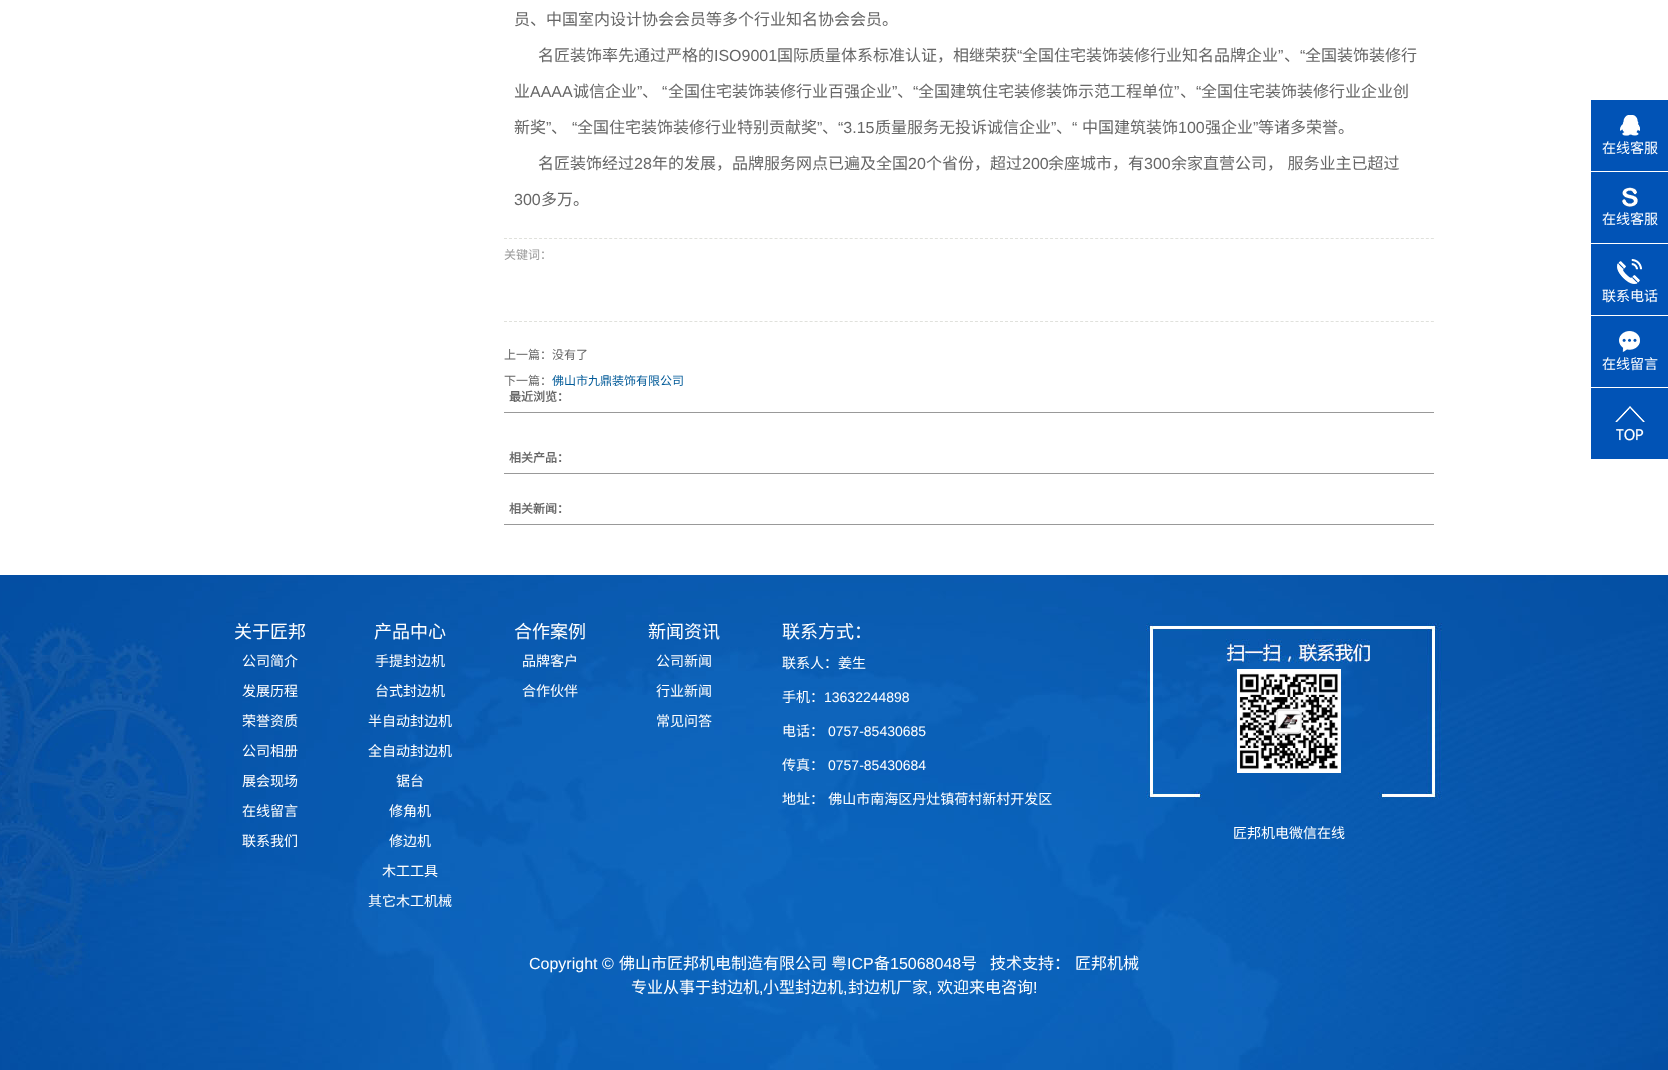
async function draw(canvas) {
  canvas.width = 1668;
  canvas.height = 1070;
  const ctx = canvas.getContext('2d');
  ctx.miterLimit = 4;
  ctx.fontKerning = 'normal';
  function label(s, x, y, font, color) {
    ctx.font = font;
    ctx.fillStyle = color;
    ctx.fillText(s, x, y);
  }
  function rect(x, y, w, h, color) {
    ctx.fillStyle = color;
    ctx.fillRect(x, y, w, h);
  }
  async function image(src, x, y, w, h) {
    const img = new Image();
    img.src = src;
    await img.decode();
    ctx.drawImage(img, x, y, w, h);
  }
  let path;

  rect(0, 0, 1668, 1070, '#fff');
  label('员、中国室内设计协会会员等多个行业知名协会会员。', 514, 25, '16px Noto Sans CJK SC', '#666');
  label('名匠装饰率先通过严格的', 538, 61, '16px Noto Sans CJK SC', '#666');
  label('ISO9001', 714, 61, '16px Liberation Sans', '#666');
  label('国际质量体系标准认证，相继荣获', 777, 61, '16px Noto Sans CJK SC', '#666');
  label('“', 1017, 61, '16px Liberation Sans', '#666');
  label('全国住宅装饰装修行业知名品牌企业', 1022, 61, '16px Noto Sans CJK SC', '#666');
  label('”', 1278, 61, '16px Liberation Sans', '#666');
  label('“', 1300, 61, '16px Liberation Sans', '#666');
  label('全国装饰装修行', 1305, 61, '16px Noto Sans CJK SC', '#666');
  label('、', 1284, 61, '16px Noto Sans CJK SC', '#666');
  label('业', 514, 97, '16px Noto Sans CJK SC', '#666');
  label('AAAA', 530, 97, '16px Liberation Sans', '#666');
  label('诚信企业', 573, 97, '16px Noto Sans CJK SC', '#666');
  label('”', 637, 97, '16px Liberation Sans', '#666');
  label('“', 662, 97, '16px Liberation Sans', '#666');
  label('全国住宅装饰装修行业百强企业', 668, 97, '16px Noto Sans CJK SC', '#666');
  label('”', 892, 97, '16px Liberation Sans', '#666');
  label('“', 913, 97, '16px Liberation Sans', '#666');
  label('全国建筑住宅装修装饰示范工程单位', 918, 97, '16px Noto Sans CJK SC', '#666');
  label('”', 1174, 97, '16px Liberation Sans', '#666');
  label('“', 1196, 97, '16px Liberation Sans', '#666');
  label('全国住宅装饰装修行业企业创', 1201, 97, '16px Noto Sans CJK SC', '#666');
  label('、', 642, 97, '16px Noto Sans CJK SC', '#666');
  label('、', 897, 97, '16px Noto Sans CJK SC', '#666');
  label('、', 1180, 97, '16px Noto Sans CJK SC', '#666');
  label('新奖', 514, 133, '16px Noto Sans CJK SC', '#666');
  label('”', 546, 133, '16px Liberation Sans', '#666');
  label('“', 572, 133, '16px Liberation Sans', '#666');
  label('全国住宅装饰装修行业特别贡献奖', 577, 133, '16px Noto Sans CJK SC', '#666');
  label('”', 817, 133, '16px Liberation Sans', '#666');
  label('“3.15', 838, 133, '16px Liberation Sans', '#666');
  label('质量服务无投诉诚信企业', 875, 133, '16px Noto Sans CJK SC', '#666');
  label('”', 1051, 133, '16px Liberation Sans', '#666');
  label('“', 1072, 133, '16px Liberation Sans', '#666');
  label('中国建筑装饰', 1082, 133, '16px Noto Sans CJK SC', '#666');
  label('100', 1178, 133, '16px Liberation Sans', '#666');
  label('强企业', 1205, 133, '16px Noto Sans CJK SC', '#666');
  label('”', 1253, 133, '16px Liberation Sans', '#666');
  label('等诸多荣誉。', 1258, 133, '16px Noto Sans CJK SC', '#666');
  label('、', 551, 133, '16px Noto Sans CJK SC', '#666');
  label('、', 822, 133, '16px Noto Sans CJK SC', '#666');
  label('、', 1056, 133, '16px Noto Sans CJK SC', '#666');
  label('名匠装饰经过', 538, 169, '16px Noto Sans CJK SC', '#666');
  label('28', 634, 169, '16px Liberation Sans', '#666');
  label('年的发展，品牌服务网点已遍及全国', 652, 169, '16px Noto Sans CJK SC', '#666');
  label('20', 908, 169, '16px Liberation Sans', '#666');
  label('个省份，超过', 926, 169, '16px Noto Sans CJK SC', '#666');
  label('200', 1022, 169, '16px Liberation Sans', '#666');
  label('余座城市，有', 1048, 169, '16px Noto Sans CJK SC', '#666');
  label('300', 1144, 169, '16px Liberation Sans', '#666');
  ctx.wordSpacing = '1px';
  label('余家直营公司， 服务业主已超过', 1171, 169, '16px Noto Sans CJK SC', '#666');
  ctx.wordSpacing = '0px';
  label('300', 514, 205, '16px Liberation Sans', '#666');
  label('多万。', 541, 205, '16px Noto Sans CJK SC', '#666');
  path = new Path2D('M504 238.5H1434');
  ctx.strokeStyle = '#e0e1dc';
  ctx.setLineDash([3, 2.01]);
  ctx.stroke(path);
  label('关键词：', 504, 259, '12px Noto Sans CJK SC', '#999');
  path = new Path2D('M504 321.5H1434');
  ctx.stroke(path);
  label('上一篇：没有了', 504, 359, '12px Noto Sans CJK SC', '#666');
  label('下一篇：', 504, 385, '12px Noto Sans CJK SC', '#666');
  label('佛山市九鼎装饰有限公司', 552, 385, '12px Noto Sans CJK SC', '#005a98');
  rect(504, 412, 930, 1, '#999');
  label('最近浏览：', 509, 401, 'bold 12px Noto Sans CJK SC', '#666');
  rect(504, 473, 930, 1, '#999');
  label('相关产品：', 509, 462, 'bold 12px Noto Sans CJK SC', '#666');
  rect(504, 524, 930, 1, '#999');
  label('相关新闻：', 509, 513, 'bold 12px Noto Sans CJK SC', '#666');
  rect(1591, 100, 77, 71, '#0153b6');
  await image('assets/img1.png', 1620, 115, 20, 21);
  label('在线客服', 1602, 153, '14px Noto Sans CJK SC', '#fff');
  rect(1591, 172, 77, 71, '#0153b6');
  await image('assets/img2.png', 1622, 187, 16, 20);
  label('在线客服', 1602, 224, '14px Noto Sans CJK SC', '#fff');
  rect(1591, 244, 77, 71, '#0153b6');
  await image('assets/img3.png', 1617, 259, 25, 25);
  label('联系电话', 1602, 301, '14px Noto Sans CJK SC', '#fff');
  rect(1591, 316, 77, 71, '#0153b6');
  await image('assets/img4.png', 1619, 331, 21, 21);
  label('在线留言', 1602, 369, '14px Noto Sans CJK SC', '#fff');
  rect(1591, 388, 77, 71, '#0153b6');
  await image('assets/img5.png', 1615, 406, 30, 35);
  await image('assets/img6.png', 0, 575, 1668, 495);
  label('关于匠邦', 234, 638, '18px Noto Sans CJK SC', '#fff');
  label('公司简介', 242, 666, '14px Noto Sans CJK SC', '#fff');
  label('发展历程', 242, 696, '14px Noto Sans CJK SC', '#fff');
  label('荣誉资质', 242, 726, '14px Noto Sans CJK SC', '#fff');
  label('公司相册', 242, 756, '14px Noto Sans CJK SC', '#fff');
  label('展会现场', 242, 786, '14px Noto Sans CJK SC', '#fff');
  label('在线留言', 242, 816, '14px Noto Sans CJK SC', '#fff');
  label('联系我们', 242, 846, '14px Noto Sans CJK SC', '#fff');
  label('产品中心', 374, 638, '18px Noto Sans CJK SC', '#fff');
  label('手提封边机', 375, 666, '14px Noto Sans CJK SC', '#fff');
  label('台式封边机', 375, 696, '14px Noto Sans CJK SC', '#fff');
  label('半自动封边机', 368, 726, '14px Noto Sans CJK SC', '#fff');
  label('全自动封边机', 368, 756, '14px Noto Sans CJK SC', '#fff');
  label('锯台', 396, 786, '14px Noto Sans CJK SC', '#fff');
  label('修角机', 389, 816, '14px Noto Sans CJK SC', '#fff');
  label('修边机', 389, 846, '14px Noto Sans CJK SC', '#fff');
  label('木工工具', 382, 876, '14px Noto Sans CJK SC', '#fff');
  label('其它木工机械', 368, 906, '14px Noto Sans CJK SC', '#fff');
  label('合作案例', 514, 638, '18px Noto Sans CJK SC', '#fff');
  label('品牌客户', 522, 666, '14px Noto Sans CJK SC', '#fff');
  label('合作伙伴', 522, 696, '14px Noto Sans CJK SC', '#fff');
  label('新闻资讯', 648, 638, '18px Noto Sans CJK SC', '#fff');
  label('公司新闻', 656, 666, '14px Noto Sans CJK SC', '#fff');
  label('行业新闻', 656, 696, '14px Noto Sans CJK SC', '#fff');
  label('常见问答', 656, 726, '14px Noto Sans CJK SC', '#fff');
  label('联系方式：', 782, 638, '18px Noto Sans CJK SC', '#fff');
  label('联系人：姜生', 782, 668, '14px Noto Sans CJK SC', '#fff');
  label('手机：', 782, 702, '14px Noto Sans CJK SC', '#fff');
  label('13632244898', 824, 702, '14px Liberation Sans', '#fff');
  label('电话：', 782, 736, '14px Noto Sans CJK SC', '#fff');
  label('0757-85430685', 828, 736, '14px Liberation Sans', '#fff');
  label('传真：', 782, 770, '14px Noto Sans CJK SC', '#fff');
  label('0757-85430684', 828, 770, '14px Liberation Sans', '#fff');
  ctx.wordSpacing = '1px';
  label('地址： 佛山市南海区丹灶镇荷村新村开发区', 782, 804, '14px Noto Sans CJK SC', '#fff');
  await image('assets/img7.png', 1237, 669, 104, 104);
  ctx.wordSpacing = '0px';
  label('匠邦机电微信在线', 1233, 838, '14px Noto Sans CJK SC', '#fff');
  label('Copyright ©', 529, 969, '16px Liberation Sans', '#fff');
  label('佛山市匠邦机电制造有限公司', 619, 969, '16px Noto Sans CJK SC', '#fff');
  label('粤', 831, 969, '16px Noto Sans CJK SC', '#fff');
  label('ICP', 847, 969, '16px Liberation Sans', '#fff');
  label('备', 874, 969, '16px Noto Sans CJK SC', '#fff');
  label('15068048', 890, 969, '16px Liberation Sans', '#fff');
  label('号', 961, 969, '16px Noto Sans CJK SC', '#fff');
  label('技术支持：', 990, 969, '16px Noto Sans CJK SC', '#fff');
  label('匠邦机械', 1075, 969, '16px Noto Sans CJK SC', '#fff');
  label('专业从事于封边机', 631, 993, '16px Noto Sans CJK SC', '#fff');
  label('小型封边机', 763, 993, '16px Noto Sans CJK SC', '#fff');
  label('封边机厂家', 848, 993, '16px Noto Sans CJK SC', '#fff');
  label('欢迎来电咨询', 937, 993, '16px Noto Sans CJK SC', '#fff');
  label('!', 1033, 993, '16px Liberation Sans', '#fff');
  label(',', 759, 993, '16px Liberation Sans', '#fff');
  label(',', 843, 993, '16px Liberation Sans', '#fff');
  label(',', 928, 993, '16px Liberation Sans', '#fff');
}

draw(document.querySelector('canvas'));
